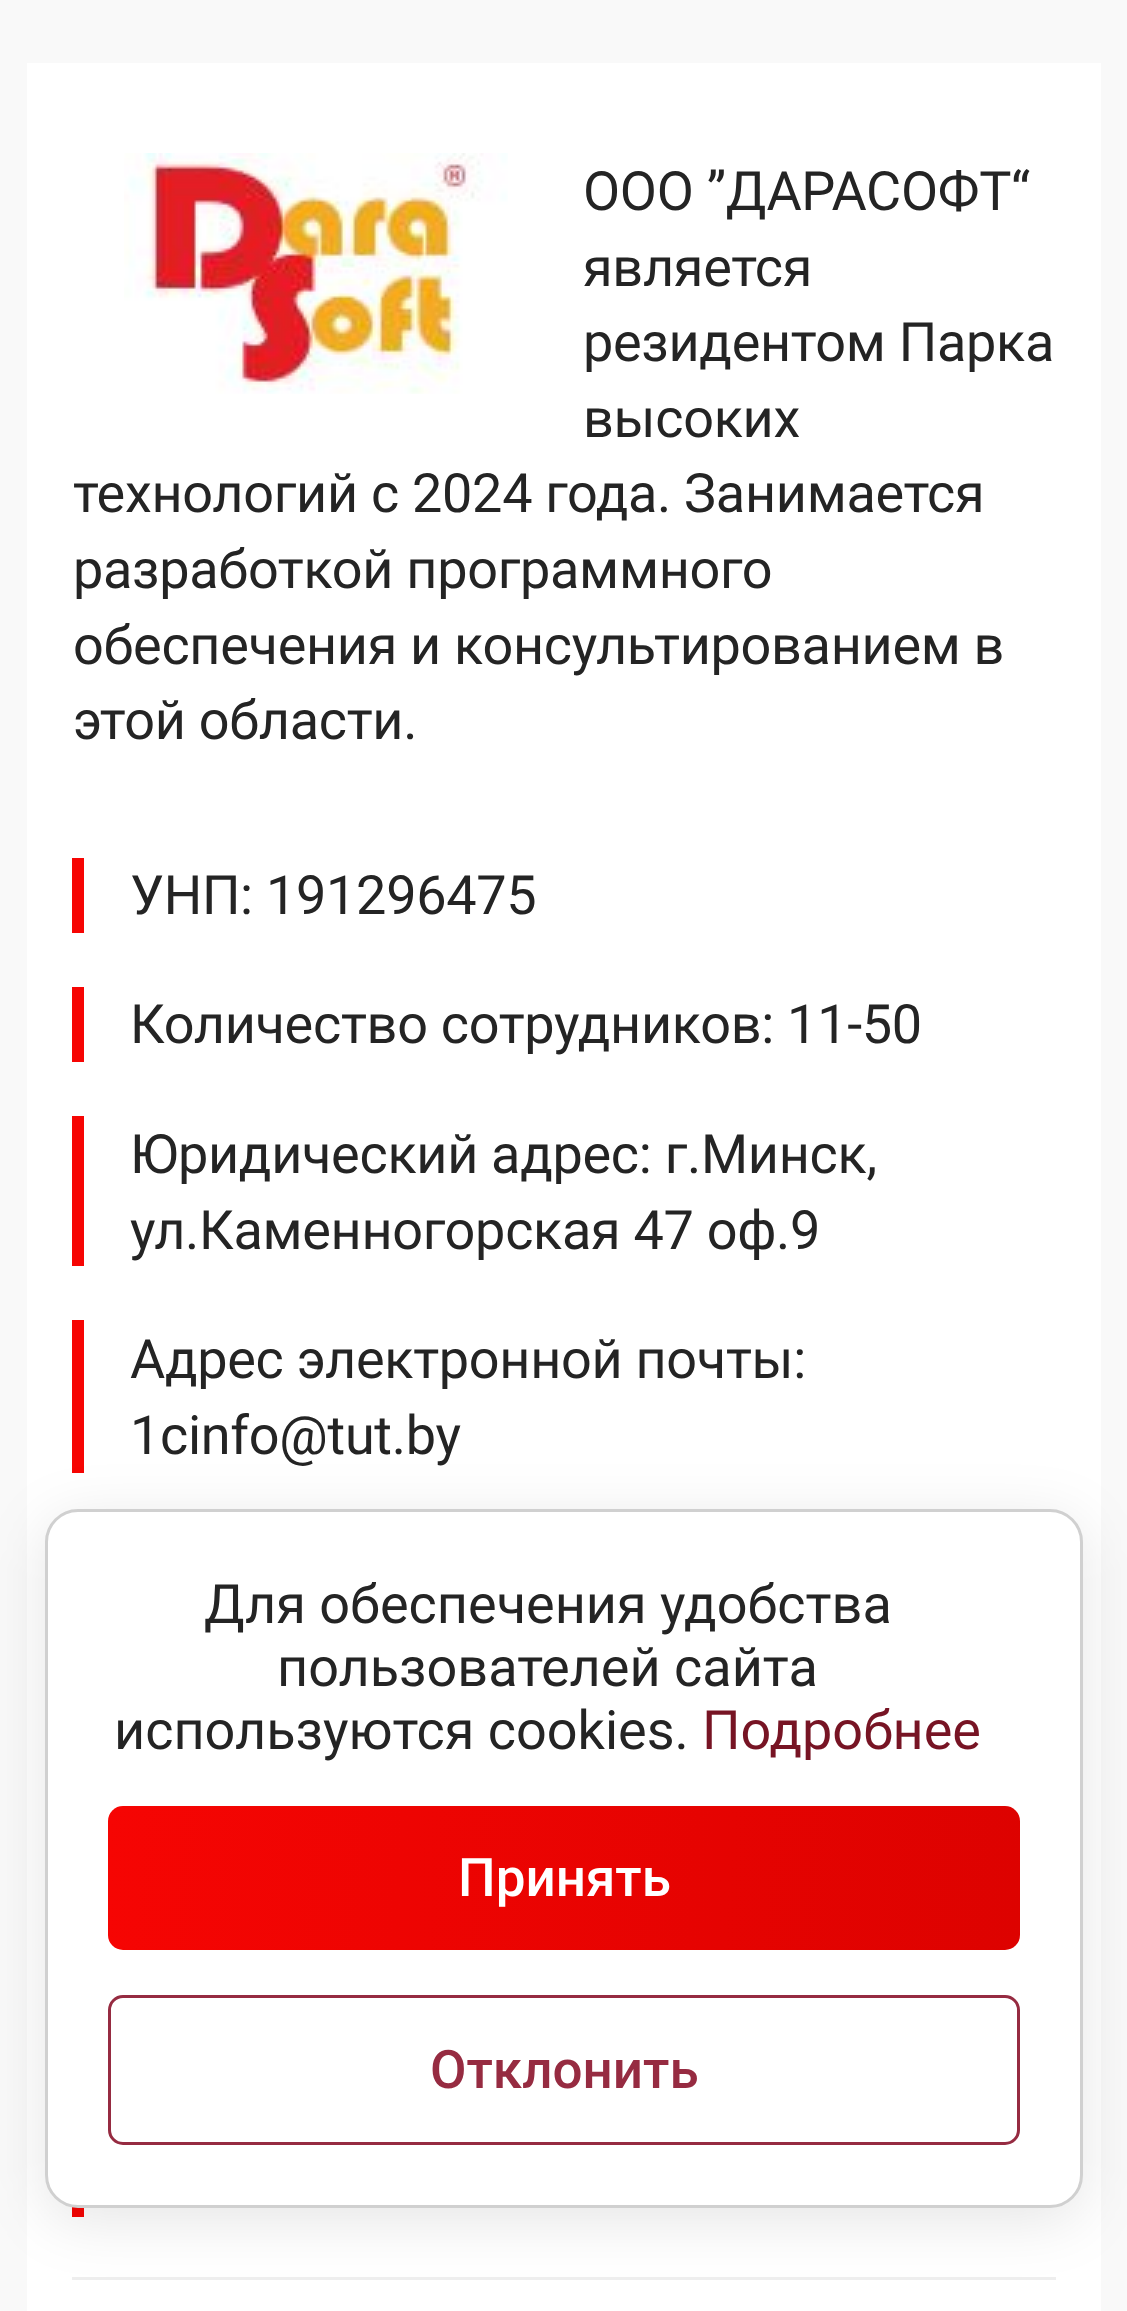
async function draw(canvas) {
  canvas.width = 1127;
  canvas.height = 2311;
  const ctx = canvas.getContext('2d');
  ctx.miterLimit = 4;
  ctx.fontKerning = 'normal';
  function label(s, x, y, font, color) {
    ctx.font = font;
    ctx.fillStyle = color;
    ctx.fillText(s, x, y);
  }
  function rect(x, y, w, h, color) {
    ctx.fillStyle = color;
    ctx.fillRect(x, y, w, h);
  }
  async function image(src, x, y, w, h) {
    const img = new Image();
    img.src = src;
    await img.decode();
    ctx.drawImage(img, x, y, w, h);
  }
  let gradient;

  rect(0, 0, 1127, 2311, '#f9f9f9');
  rect(27, 63, 1074, 2248, '#fff');
  await image('assets/img1.png', 124, 153, 384, 241);
  ctx.letterSpacing = '-0.3px';
  label('ООО ”ДАРАСОФТ“', 583, 210, '54px Roboto', '#242424');
  label('является', 583, 286, '54px Roboto', '#242424');
  label('резидентом Парка', 583, 361, '54px Roboto', '#242424');
  label('высоких', 583, 437, '54px Roboto', '#242424');
  label('технологий с 2024 года. Занимается', 73, 512, '54px Roboto', '#242424');
  label('разработкой программного', 73, 588, '54px Roboto', '#242424');
  label('обеспечения и консультированием в', 73, 664, '54px Roboto', '#242424');
  label('этой области.', 73, 739, '54px Roboto', '#242424');
  rect(72, 858, 12, 75, '#f60503');
  label('УНП: 191296475', 130, 914, '54px Roboto', '#242424');
  rect(72, 987, 12, 75, '#f60503');
  label('Количество сотрудников: 11-50', 130, 1043, '54px Roboto', '#242424');
  rect(72, 1116, 12, 150, '#f60503');
  label('Юридический адрес: г.Минск,', 130, 1173, '54px Roboto', '#242424');
  label('ул.Каменногорская 47 оф.9', 130, 1249, '54px Roboto', '#242424');
  rect(72, 1320, 12, 153, '#f60503');
  label('Адрес электронной почты:', 130, 1378, '54px Roboto', '#242424');
  label('1cinfo@tut.by', 130, 1454, '54px Roboto', '#242424');
  rect(72, 2207, 12, 10, '#f60503');
  rect(72, 2277, 984, 3, '#eee');
  ctx.fillStyle = '#0000001a';
  ctx.filter = 'blur(30px)';
  ctx.beginPath();
  ctx.roundRect(45, 1521, 1038, 699, 33);
  ctx.fill();
  ctx.filter = 'none';
  ctx.fillStyle = '#fff';
  ctx.beginPath();
  ctx.roundRect(46.5, 1510.5, 1035, 696, 31.5);
  ctx.fill();
  ctx.strokeStyle = '#d0d0d0';
  ctx.lineWidth = 3;
  ctx.stroke();
  ctx.letterSpacing = '0px';
  label('Для обеспечения удобства', 204, 1623, '54px Roboto', '#242424');
  label('пользователей сайта', 277, 1686, '54px Roboto', '#242424');
  label('используются cookies.', 114, 1749, '54px Roboto', '#242424');
  label('Подробнее', 702, 1749, '54px Roboto', '#771424');
  gradient = ctx.createLinearGradient(105, 1844, 1023, 1912);
  gradient.addColorStop(0, '#f60503');
  gradient.addColorStop(1, '#dd0200');
  ctx.fillStyle = gradient;
  ctx.beginPath();
  ctx.roundRect(108, 1806, 912, 144, 15);
  ctx.fill();
  label('Принять', 458, 1896, '500 53px Roboto', '#fff');
  ctx.beginPath();
  ctx.roundRect(109.5, 1996.5, 909, 147, 13.5);
  ctx.strokeStyle = '#962b41';
  ctx.stroke();
  label('Отклонить', 430, 2088, '500 53px Roboto', '#962b41');
}

draw(document.querySelector('canvas'));
